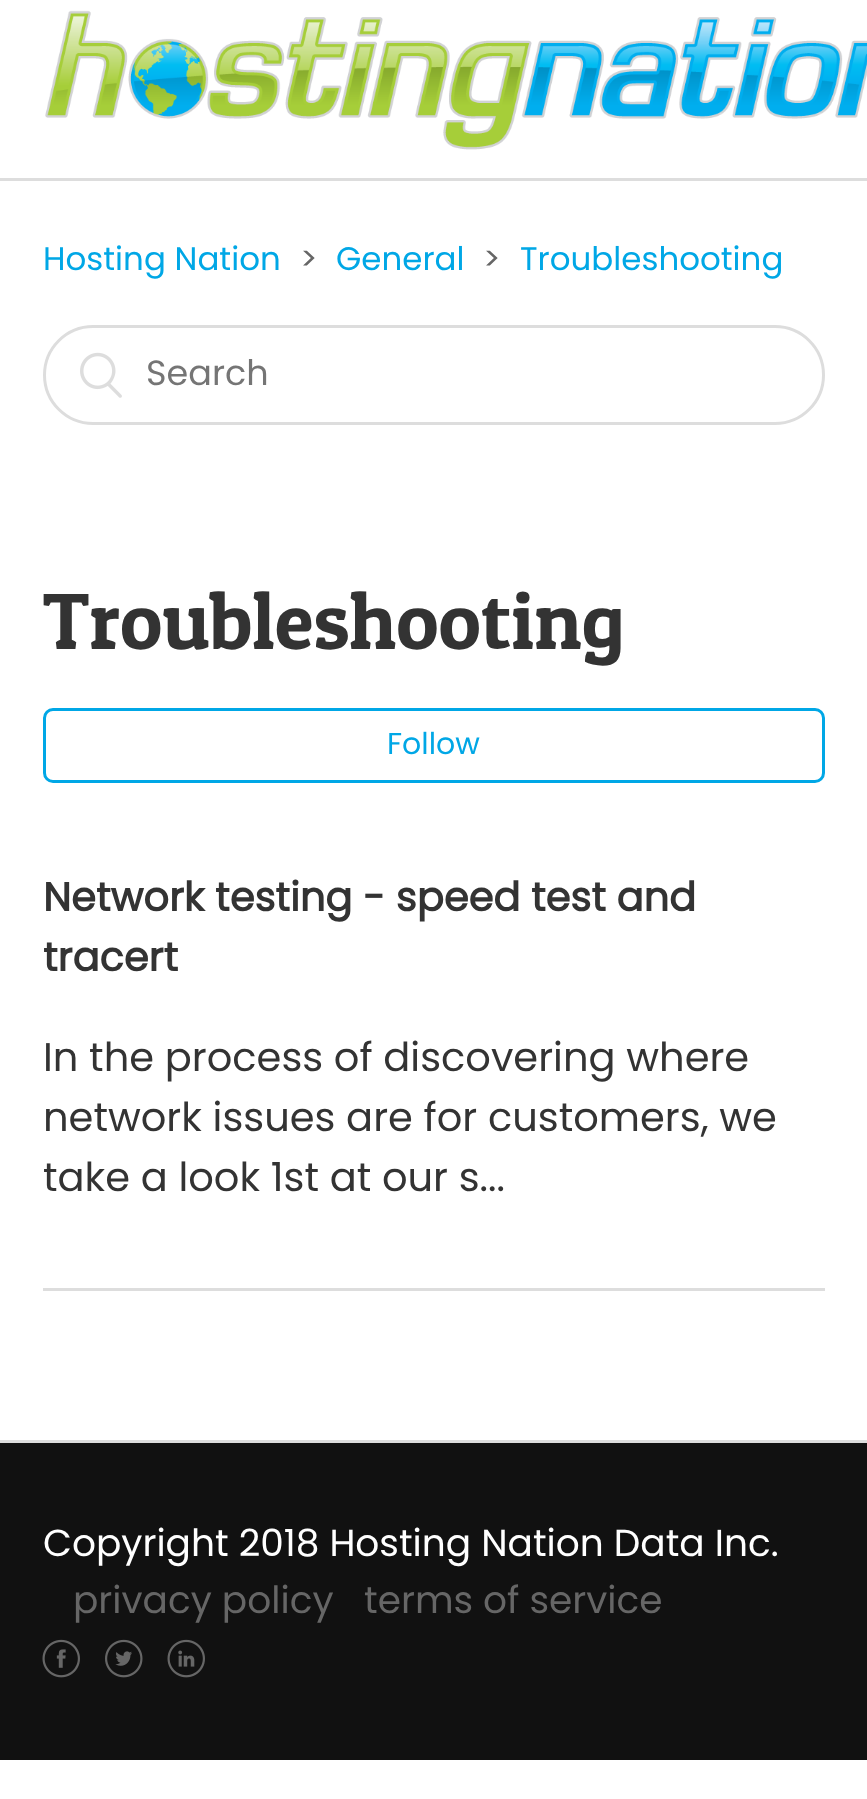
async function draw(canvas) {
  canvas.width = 867;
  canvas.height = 1799;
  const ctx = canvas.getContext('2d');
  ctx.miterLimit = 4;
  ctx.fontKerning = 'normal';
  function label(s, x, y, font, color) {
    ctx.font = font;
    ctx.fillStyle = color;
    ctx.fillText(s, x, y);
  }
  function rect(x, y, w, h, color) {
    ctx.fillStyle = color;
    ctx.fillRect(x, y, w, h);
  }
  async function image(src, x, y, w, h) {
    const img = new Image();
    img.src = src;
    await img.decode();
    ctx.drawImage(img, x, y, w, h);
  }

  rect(0, 0, 867, 1799, '#fff');
  await image('assets/img1.png', 45, 10, 822, 140);
  rect(0, 178, 867, 3, '#ddd');
  label('Hosting Nation', 43, 270, '32.5px Poppins', '#00a7e6');
  label('>', 300, 270, '32.5px Poppins', '#666');
  label('General', 336, 270, '32.5px Poppins', '#00a7e6');
  label('>', 483, 270, '32.5px Poppins', '#666');
  label('Troubleshooting', 520, 270, '32.5px Poppins', '#00a7e6');
  ctx.beginPath();
  ctx.roundRect(44.5, 326.5, 779, 97, 48.5);
  ctx.strokeStyle = '#ddd';
  ctx.lineWidth = 3;
  ctx.stroke();
  await image('assets/img2.png', 80, 352, 42, 46);
  label('Search', 146, 385, '35px Poppins', '#757575');
  label('Troubleshooting', 43, 649, '80px Patua One', '#333');
  ctx.beginPath();
  ctx.roundRect(44.5, 709.5, 779, 72, 8.5);
  ctx.strokeStyle = '#00a7e6';
  ctx.stroke();
  label('Follow', 387, 754, '30px Poppins', '#00a7e6');
  rect(43, 1288, 782, 3, '#ddd');
  label('Network testing - speed test and', 43, 911, 'bold 40px Poppins', '#333');
  label('tracert', 43, 971, 'bold 40px Poppins', '#333');
  label('In the process of discovering where', 43, 1071, '40px Poppins', '#333');
  label('network issues are for customers, we', 43, 1131, '40px Poppins', '#333');
  label('take a look 1st at our s...', 43, 1191, '40px Poppins', '#333');
  rect(0, 1443, 867, 317, '#111');
  rect(0, 1440, 867, 3, '#ddd');
  label('Copyright 2018 Hosting Nation Data Inc.', 43, 1556, '37.5px Poppins', '#fff');
  label('privacy policy', 73, 1613, '37.5px Poppins', '#666');
  label('terms of service', 364, 1613, '37.5px Poppins', '#666');
  await image('assets/img3.png', 42, 1639, 38, 39);
  await image('assets/img4.png', 105, 1639, 38, 39);
  await image('assets/img5.png', 167, 1639, 38, 39);
}

draw(document.querySelector('canvas'));
